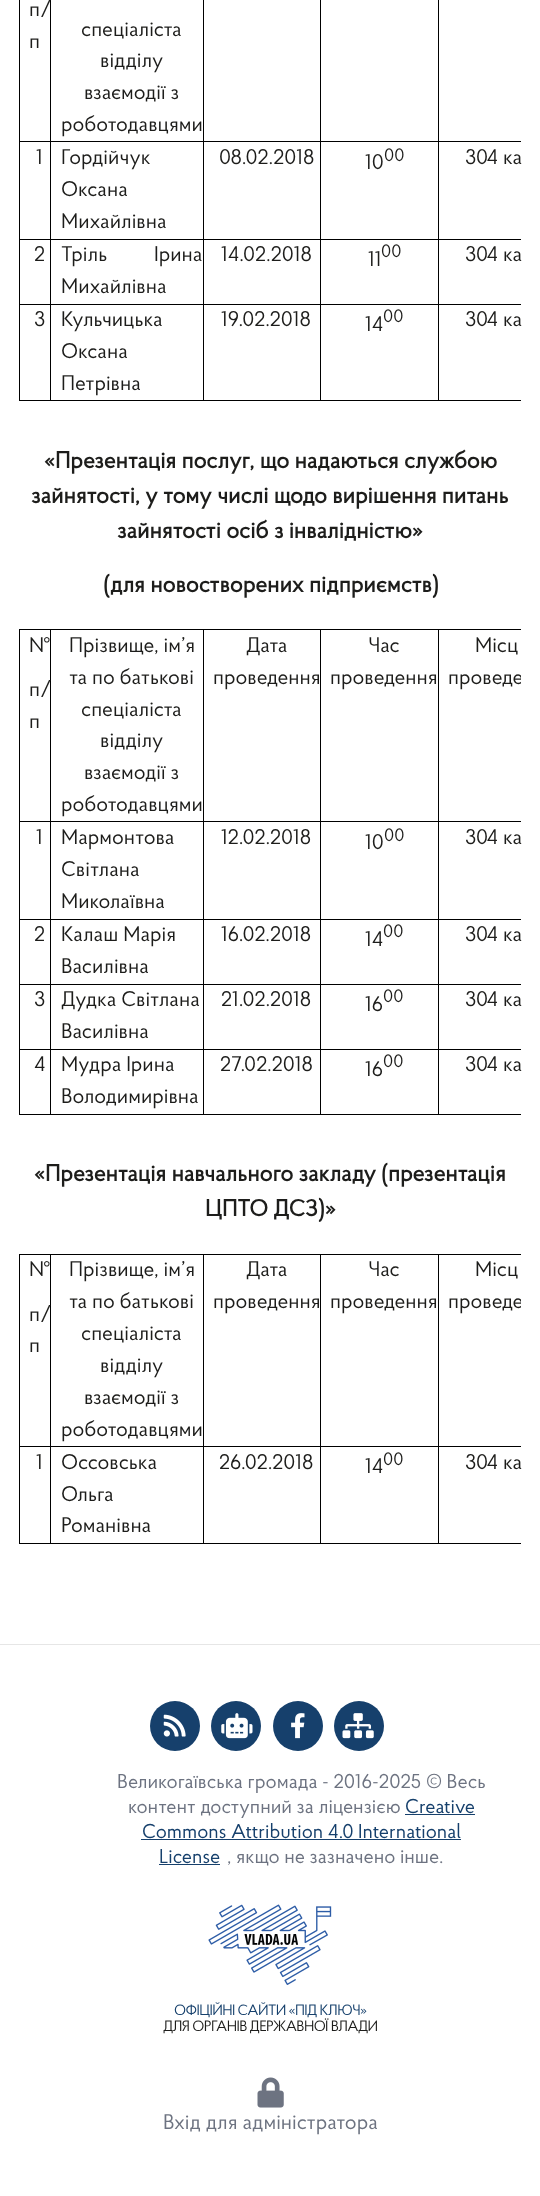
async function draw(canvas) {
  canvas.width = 540;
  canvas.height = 2196;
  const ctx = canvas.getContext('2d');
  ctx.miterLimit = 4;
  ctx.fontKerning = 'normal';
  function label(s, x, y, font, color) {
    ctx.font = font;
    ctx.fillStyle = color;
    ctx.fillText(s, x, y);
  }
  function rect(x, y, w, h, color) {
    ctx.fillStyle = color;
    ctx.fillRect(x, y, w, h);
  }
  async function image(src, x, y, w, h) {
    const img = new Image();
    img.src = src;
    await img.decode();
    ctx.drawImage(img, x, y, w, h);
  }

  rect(0, 0, 540, 2196, '#fff');
  rect(438, 141, 83, 1, '#000');
  rect(438, 239, 83, 1, '#000');
  rect(438, 304, 83, 1, '#000');
  rect(438, 400, 83, 1, '#000');
  rect(438, 304, 1, 97, '#000');
  rect(320, 304, 119, 1, '#000');
  rect(438, 239, 1, 66, '#000');
  rect(320, 239, 119, 1, '#000');
  rect(438, 141, 1, 99, '#000');
  rect(320, 141, 119, 1, '#000');
  rect(320, 400, 119, 1, '#000');
  rect(320, 304, 1, 97, '#000');
  rect(203, 304, 118, 1, '#000');
  rect(320, 239, 1, 66, '#000');
  rect(203, 239, 118, 1, '#000');
  rect(320, 141, 1, 99, '#000');
  rect(203, 141, 118, 1, '#000');
  rect(203, 400, 118, 1, '#000');
  rect(203, 304, 1, 97, '#000');
  rect(50, 304, 154, 1, '#000');
  rect(203, 239, 1, 66, '#000');
  rect(50, 239, 154, 1, '#000');
  rect(203, 141, 1, 99, '#000');
  rect(50, 141, 154, 1, '#000');
  rect(50, 400, 154, 1, '#000');
  rect(50, 304, 1, 97, '#000');
  rect(19, 304, 32, 1, '#000');
  rect(50, 239, 1, 66, '#000');
  rect(19, 239, 32, 1, '#000');
  rect(50, 141, 1, 99, '#000');
  rect(19, 141, 32, 1, '#000');
  rect(50, 0, 1, 143, '#000');
  label('п/', 29, 16, '21.25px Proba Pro', '#1d1d1b');
  label('п', 29, 48, '21.25px Proba Pro', '#1d1d1b');
  label('спеціаліста', 81, 36, '21.25px Proba Pro', '#1d1d1b');
  label('відділу', 100, 67, '21.25px Proba Pro', '#1d1d1b');
  label('взаємодії з', 84, 99, '21.25px Proba Pro', '#1d1d1b');
  label('роботодавцями', 61, 131, '21.25px Proba Pro', '#1d1d1b');
  rect(203, 0, 1, 143, '#000');
  rect(320, 0, 1, 143, '#000');
  rect(438, 0, 1, 143, '#000');
  rect(19, 400, 32, 1, '#000');
  rect(19, 304, 1, 97, '#000');
  rect(19, 239, 1, 66, '#000');
  rect(19, 0, 1, 240, '#000');
  label('1', 36, 164, '21.25px Proba Pro', '#1d1d1b');
  label('Гордійчук', 61, 164, '21.25px Proba Pro', '#1d1d1b');
  label('Оксана', 61, 196, '21.25px Proba Pro', '#1d1d1b');
  label('Михайлівна', 61, 228, '21.25px Proba Pro', '#1d1d1b');
  label('08.02.2018', 219, 164, '21.25px Proba Pro', '#1d1d1b');
  label('10', 365, 169, '21.25px Proba Pro', '#1d1d1b');
  label('00', 384, 161, '18px Proba Pro', '#1d1d1b');
  label('304 ка', 465, 164, '21.25px Proba Pro', '#1d1d1b');
  label('2', 34, 261, '21.25px Proba Pro', '#1d1d1b');
  ctx.wordSpacing = '42px';
  label('Тріль Ірина', 61, 261, '21.25px Proba Pro', '#1d1d1b');
  ctx.wordSpacing = '0px';
  label('Михайлівна', 61, 293, '21.25px Proba Pro', '#1d1d1b');
  label('14.02.2018', 221, 261, '21.25px Proba Pro', '#1d1d1b');
  label('11', 368, 266, '21.25px Proba Pro', '#1d1d1b');
  label('00', 381, 257, '18px Proba Pro', '#1d1d1b');
  label('304 ка', 465, 261, '21.25px Proba Pro', '#1d1d1b');
  label('3', 34, 326, '21.25px Proba Pro', '#1d1d1b');
  label('Кульчицька', 61, 326, '21.25px Proba Pro', '#1d1d1b');
  label('Оксана', 61, 358, '21.25px Proba Pro', '#1d1d1b');
  label('Петрівна', 61, 390, '21.25px Proba Pro', '#1d1d1b');
  label('19.02.2018', 221, 326, '21.25px Proba Pro', '#1d1d1b');
  label('14', 365, 331, '21.25px Proba Pro', '#1d1d1b');
  label('00', 383, 322, '18px Proba Pro', '#1d1d1b');
  label('304 ка', 465, 326, '21.25px Proba Pro', '#1d1d1b');
  label('«Презентація послуг, що надаються службою', 44, 468, 'bold 23.3px Proba Pro', '#1d1d1b');
  label('зайнятості, у тому числі щодо вирішення питань', 31, 503, 'bold 23.3px Proba Pro', '#1d1d1b');
  label('зайнятості осіб з інвалідністю»', 117, 538, 'bold 23.3px Proba Pro', '#1d1d1b');
  label('(для новостворених підприємств)', 103, 592, 'bold 23.3px Proba Pro', '#1d1d1b');
  rect(438, 629, 83, 1, '#000');
  rect(438, 821, 83, 1, '#000');
  rect(438, 919, 83, 1, '#000');
  rect(438, 984, 83, 1, '#000');
  rect(438, 1049, 83, 1, '#000');
  rect(438, 1114, 83, 1, '#000');
  rect(438, 1049, 1, 66, '#000');
  rect(320, 1049, 119, 1, '#000');
  rect(438, 984, 1, 66, '#000');
  rect(320, 984, 119, 1, '#000');
  rect(438, 919, 1, 66, '#000');
  rect(320, 919, 119, 1, '#000');
  rect(438, 821, 1, 99, '#000');
  rect(320, 821, 119, 1, '#000');
  rect(438, 629, 1, 194, '#000');
  rect(320, 629, 119, 1, '#000');
  rect(320, 1114, 119, 1, '#000');
  rect(320, 1049, 1, 66, '#000');
  rect(203, 1049, 118, 1, '#000');
  rect(320, 984, 1, 66, '#000');
  rect(203, 984, 118, 1, '#000');
  rect(320, 919, 1, 66, '#000');
  rect(203, 919, 118, 1, '#000');
  rect(320, 821, 1, 99, '#000');
  rect(203, 821, 118, 1, '#000');
  rect(320, 629, 1, 194, '#000');
  rect(203, 629, 118, 1, '#000');
  rect(203, 1114, 118, 1, '#000');
  rect(203, 1049, 1, 66, '#000');
  rect(50, 1049, 154, 1, '#000');
  rect(203, 984, 1, 66, '#000');
  rect(50, 984, 154, 1, '#000');
  rect(203, 919, 1, 66, '#000');
  rect(50, 919, 154, 1, '#000');
  rect(203, 821, 1, 99, '#000');
  rect(50, 821, 154, 1, '#000');
  rect(203, 629, 1, 194, '#000');
  rect(50, 629, 154, 1, '#000');
  rect(50, 1114, 154, 1, '#000');
  rect(50, 1049, 1, 66, '#000');
  rect(19, 1049, 32, 1, '#000');
  rect(50, 984, 1, 66, '#000');
  rect(19, 984, 32, 1, '#000');
  rect(50, 919, 1, 66, '#000');
  rect(19, 919, 32, 1, '#000');
  rect(50, 821, 1, 99, '#000');
  rect(19, 821, 32, 1, '#000');
  rect(50, 629, 1, 194, '#000');
  rect(19, 629, 32, 1, '#000');
  rect(19, 1114, 32, 1, '#000');
  rect(19, 1049, 1, 66, '#000');
  rect(19, 984, 1, 66, '#000');
  rect(19, 919, 1, 66, '#000');
  rect(19, 821, 1, 99, '#000');
  rect(19, 629, 1, 194, '#000');
  label('№', 29, 652, '21.25px Proba Pro', '#1d1d1b');
  label('п/', 29, 696, '21.25px Proba Pro', '#1d1d1b');
  label('п', 29, 728, '21.25px Proba Pro', '#1d1d1b');
  label('Прізвище, ім’я', 69, 652, '21.25px Proba Pro', '#1d1d1b');
  label('та по батькові', 69, 684, '21.25px Proba Pro', '#1d1d1b');
  label('спеціаліста', 81, 716, '21.25px Proba Pro', '#1d1d1b');
  label('відділу', 100, 747, '21.25px Proba Pro', '#1d1d1b');
  label('взаємодії з', 84, 779, '21.25px Proba Pro', '#1d1d1b');
  label('роботодавцями', 61, 811, '21.25px Proba Pro', '#1d1d1b');
  label('Дата', 246, 652, '21.25px Proba Pro', '#1d1d1b');
  label('проведення', 213, 684, '21.25px Proba Pro', '#1d1d1b');
  label('Час', 368, 652, '21.25px Proba Pro', '#1d1d1b');
  label('проведення', 330, 684, '21.25px Proba Pro', '#1d1d1b');
  label('Місц', 475, 652, '21.25px Proba Pro', '#1d1d1b');
  ctx.save();
  ctx.beginPath();
  ctx.rect(19, 604, 502, 536);
  ctx.clip();
  label('проведе', 448, 684, '21.25px Proba Pro', '#1d1d1b');
  ctx.restore();
  label('1', 36, 844, '21.25px Proba Pro', '#1d1d1b');
  label('Мармонтова', 61, 844, '21.25px Proba Pro', '#1d1d1b');
  label('Світлана', 61, 876, '21.25px Proba Pro', '#1d1d1b');
  label('Миколаївна', 61, 908, '21.25px Proba Pro', '#1d1d1b');
  label('12.02.2018', 221, 844, '21.25px Proba Pro', '#1d1d1b');
  label('10', 365, 849, '21.25px Proba Pro', '#1d1d1b');
  label('00', 384, 841, '18px Proba Pro', '#1d1d1b');
  label('304 ка', 465, 844, '21.25px Proba Pro', '#1d1d1b');
  label('2', 34, 941, '21.25px Proba Pro', '#1d1d1b');
  label('Калаш Марія', 61, 941, '21.25px Proba Pro', '#1d1d1b');
  label('Василівна', 61, 973, '21.25px Proba Pro', '#1d1d1b');
  label('16.02.2018', 221, 941, '21.25px Proba Pro', '#1d1d1b');
  label('14', 365, 946, '21.25px Proba Pro', '#1d1d1b');
  label('00', 383, 937, '18px Proba Pro', '#1d1d1b');
  label('304 ка', 465, 941, '21.25px Proba Pro', '#1d1d1b');
  label('3', 34, 1006, '21.25px Proba Pro', '#1d1d1b');
  label('Дудка Світлана', 61, 1006, '21.25px Proba Pro', '#1d1d1b');
  label('Василівна', 61, 1038, '21.25px Proba Pro', '#1d1d1b');
  label('21.02.2018', 221, 1006, '21.25px Proba Pro', '#1d1d1b');
  label('16', 365, 1011, '21.25px Proba Pro', '#1d1d1b');
  label('00', 383, 1002, '18px Proba Pro', '#1d1d1b');
  label('304 ка', 465, 1006, '21.25px Proba Pro', '#1d1d1b');
  label('4', 34, 1071, '21.25px Proba Pro', '#1d1d1b');
  label('Мудра Ірина', 61, 1071, '21.25px Proba Pro', '#1d1d1b');
  label('Володимирівна', 61, 1103, '21.25px Proba Pro', '#1d1d1b');
  label('27.02.2018', 220, 1071, '21.25px Proba Pro', '#1d1d1b');
  label('16', 365, 1076, '21.25px Proba Pro', '#1d1d1b');
  label('00', 383, 1067, '18px Proba Pro', '#1d1d1b');
  label('304 ка', 465, 1071, '21.25px Proba Pro', '#1d1d1b');
  label('«Презентація навчального закладу (презентація', 34, 1181, 'bold 23.3px Proba Pro', '#1d1d1b');
  label('ЦПТО ДСЗ)»', 205, 1216, 'bold 23.3px Proba Pro', '#1d1d1b');
  rect(438, 1254, 83, 1, '#000');
  rect(438, 1446, 83, 1, '#000');
  rect(438, 1543, 83, 1, '#000');
  rect(438, 1446, 1, 98, '#000');
  rect(320, 1446, 119, 1, '#000');
  rect(438, 1254, 1, 194, '#000');
  rect(320, 1254, 119, 1, '#000');
  rect(320, 1543, 119, 1, '#000');
  rect(320, 1446, 1, 98, '#000');
  rect(203, 1446, 118, 1, '#000');
  rect(320, 1254, 1, 194, '#000');
  rect(203, 1254, 118, 1, '#000');
  rect(203, 1543, 118, 1, '#000');
  rect(203, 1446, 1, 98, '#000');
  rect(50, 1446, 154, 1, '#000');
  rect(203, 1254, 1, 194, '#000');
  rect(50, 1254, 154, 1, '#000');
  rect(50, 1543, 154, 1, '#000');
  rect(50, 1446, 1, 98, '#000');
  rect(19, 1446, 32, 1, '#000');
  rect(50, 1254, 1, 194, '#000');
  rect(19, 1254, 32, 1, '#000');
  rect(19, 1543, 32, 1, '#000');
  rect(19, 1446, 1, 98, '#000');
  rect(19, 1254, 1, 194, '#000');
  label('№', 29, 1276, '21.25px Proba Pro', '#1d1d1b');
  label('п/', 29, 1321, '21.25px Proba Pro', '#1d1d1b');
  label('п', 29, 1352, '21.25px Proba Pro', '#1d1d1b');
  label('Прізвище, ім’я', 69, 1276, '21.25px Proba Pro', '#1d1d1b');
  label('та по батькові', 69, 1308, '21.25px Proba Pro', '#1d1d1b');
  label('спеціаліста', 81, 1340, '21.25px Proba Pro', '#1d1d1b');
  label('відділу', 100, 1372, '21.25px Proba Pro', '#1d1d1b');
  label('взаємодії з', 84, 1404, '21.25px Proba Pro', '#1d1d1b');
  label('роботодавцями', 61, 1436, '21.25px Proba Pro', '#1d1d1b');
  label('Дата', 246, 1276, '21.25px Proba Pro', '#1d1d1b');
  label('проведення', 213, 1308, '21.25px Proba Pro', '#1d1d1b');
  label('Час', 368, 1276, '21.25px Proba Pro', '#1d1d1b');
  label('проведення', 330, 1308, '21.25px Proba Pro', '#1d1d1b');
  label('Місц', 475, 1276, '21.25px Proba Pro', '#1d1d1b');
  ctx.save();
  ctx.beginPath();
  ctx.rect(19, 1229, 502, 340);
  ctx.clip();
  label('проведе', 448, 1308, '21.25px Proba Pro', '#1d1d1b');
  ctx.restore();
  label('1', 36, 1469, '21.25px Proba Pro', '#1d1d1b');
  label('Оссовська', 61, 1469, '21.25px Proba Pro', '#1d1d1b');
  label('Ольга', 61, 1501, '21.25px Proba Pro', '#1d1d1b');
  label('Романівна', 61, 1532, '21.25px Proba Pro', '#1d1d1b');
  label('26.02.2018', 219, 1469, '21.25px Proba Pro', '#1d1d1b');
  label('14', 365, 1473, '21.25px Proba Pro', '#1d1d1b');
  label('00', 383, 1465, '18px Proba Pro', '#1d1d1b');
  label('304 ка', 465, 1469, '21.25px Proba Pro', '#1d1d1b');
  rect(0, 1644, 540, 1, '#e6e6e6');
  ctx.fillStyle = '#16406c';
  ctx.beginPath();
  ctx.arc(175, 1726, 25, 0, 2 * Math.PI);
  ctx.fill();
  await image('assets/img1.png', 163, 1714, 23, 23);
  ctx.beginPath();
  ctx.arc(236, 1726, 25, 0, 2 * Math.PI);
  ctx.fill();
  await image('assets/img2.png', 221, 1713, 32, 26);
  ctx.beginPath();
  ctx.arc(298, 1726, 25, 0, 2 * Math.PI);
  ctx.fill();
  await image('assets/img3.png', 291, 1713, 14, 26);
  ctx.beginPath();
  ctx.arc(359, 1726, 25, 0, 2 * Math.PI);
  ctx.fill();
  await image('assets/img4.png', 342, 1713, 32, 26);
  label('Великогаївська громада - 2016-2025 © Весь', 117, 1788, '20px Proba Pro', '#6d7381');
  label('контент доступний за ліцензією', 128, 1813, '20px Proba Pro', '#6d7381');
  label('Creative', 405, 1813, '20px Proba Pro', '#16406c');
  rect(405, 1814, 70, 1, '#16406c');
  label('Commons Attribution 4.0 International', 142, 1838, '20px Proba Pro', '#16406c');
  rect(141, 1839, 320, 1, '#16406c');
  label('License', 159, 1863, '20px Proba Pro', '#16406c');
  rect(159, 1864, 61, 1, '#16406c');
  label(', якщо не зазначено інше.', 227, 1863, '20px Proba Pro', '#6d7381');
  await image('assets/img5.png', 208, 1904, 124, 81);
  ctx.letterSpacing = '-0.6px';
  label('ОФІЦІЙНІ САЙТИ «ПІД КЛЮЧ»', 174, 2015, '15px Proba Pro', '#16406c');
  label('ДЛЯ ОРГАНІВ ДЕРЖАВНОЇ ВЛАДИ', 163, 2031, '15px Proba Pro', '#1d1d1b');
  await image('assets/img6.png', 257, 2077, 27, 31);
  ctx.letterSpacing = '0px';
  label('Вхід для адміністратора', 163, 2129, '21.25px Proba Pro', '#6d7381');
}

draw(document.querySelector('canvas'));
